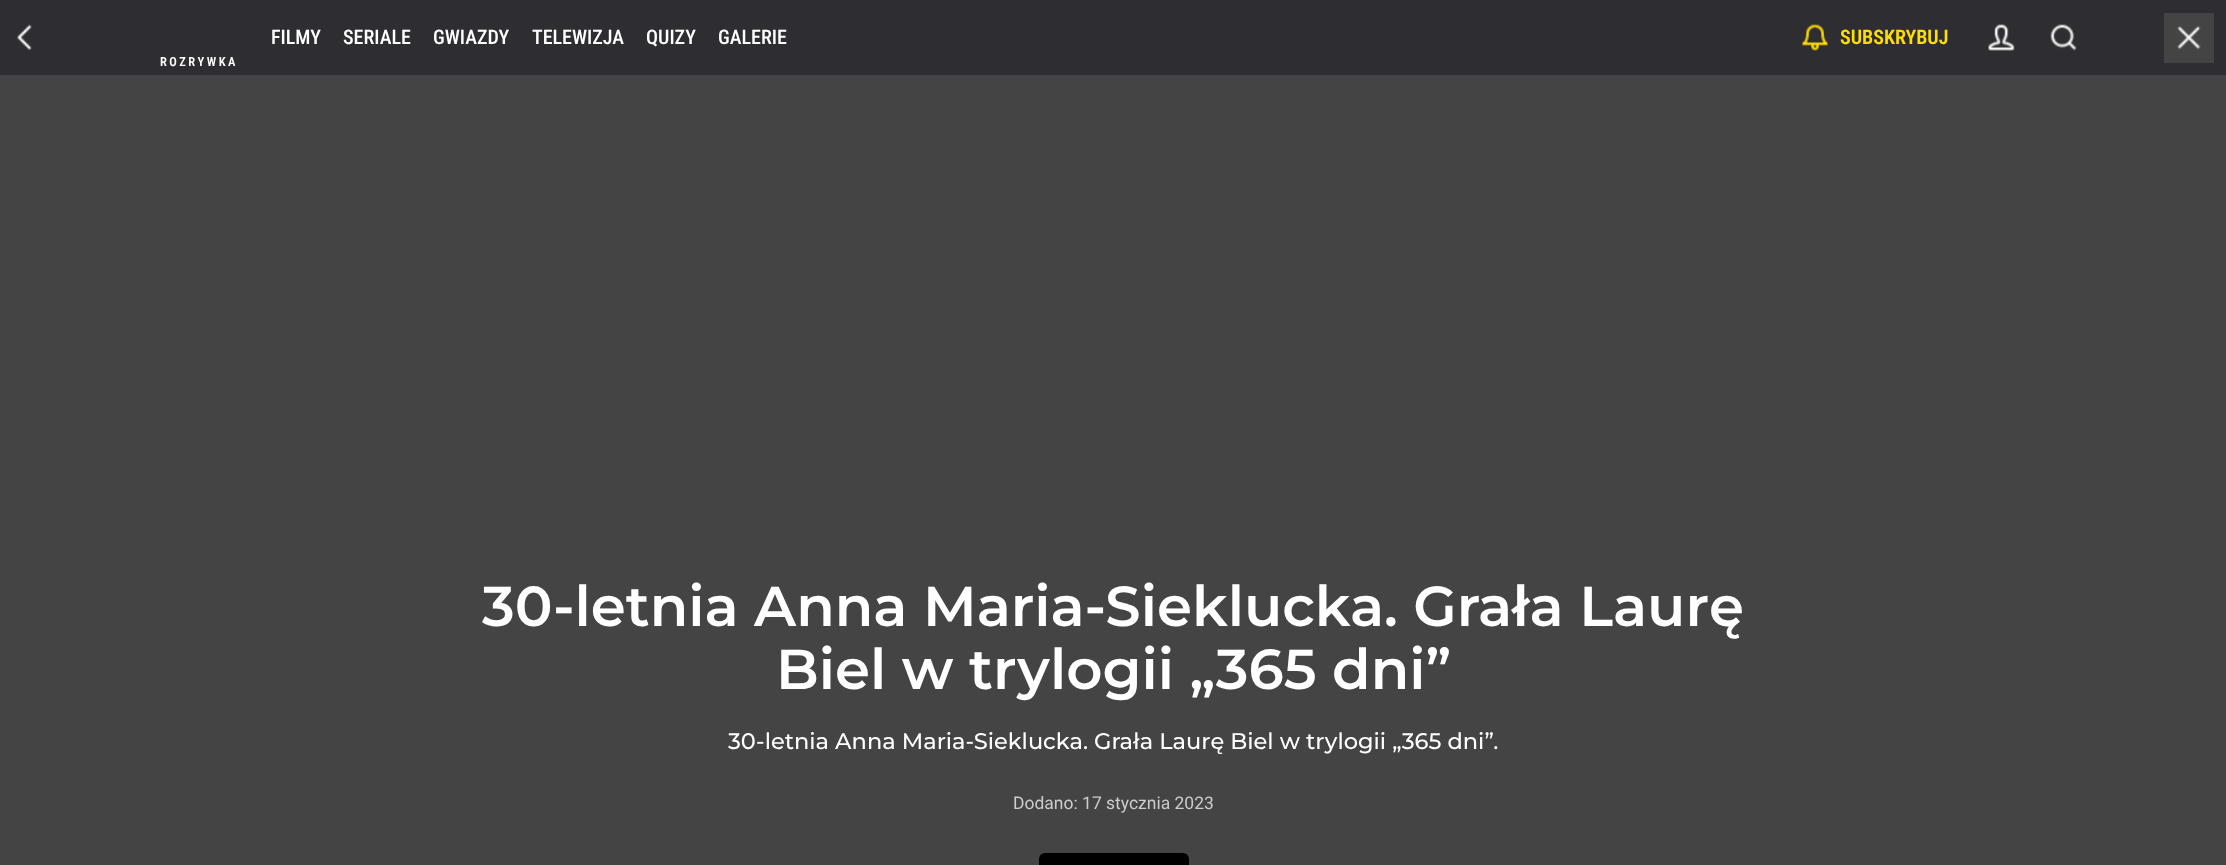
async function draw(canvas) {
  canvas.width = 2226;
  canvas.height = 865;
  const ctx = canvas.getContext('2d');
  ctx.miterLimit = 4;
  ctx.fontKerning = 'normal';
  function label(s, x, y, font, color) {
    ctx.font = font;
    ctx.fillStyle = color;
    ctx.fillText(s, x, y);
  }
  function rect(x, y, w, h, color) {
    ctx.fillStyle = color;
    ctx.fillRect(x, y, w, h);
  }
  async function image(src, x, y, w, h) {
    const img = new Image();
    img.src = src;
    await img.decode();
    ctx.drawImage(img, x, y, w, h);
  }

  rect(0, 0, 2226, 865, '#444');
  rect(0, 0, 2226, 75, '#2e2d32');
  await image('assets/img1.png', 17, 24, 15, 27);
  label('FILMY', 271, 44, '500 20px Roboto Condensed', '#fff');
  label('SERIALE', 343, 44, '500 20px Roboto Condensed', '#fff');
  label('GWIAZDY', 433, 44, '500 20px Roboto Condensed', '#fff');
  label('TELEWIZJA', 532, 44, '500 20px Roboto Condensed', '#fff');
  label('QUIZY', 646, 44, '500 20px Roboto Condensed', '#fff');
  label('GALERIE', 718, 44, '500 20px Roboto Condensed', '#fff');
  await image('assets/img2.png', 1802, 24, 26, 27);
  label('SUBSKRYBUJ', 1840, 44, '600 20px Roboto Condensed', '#ffde00');
  await image('assets/img3.png', 1988, 24, 27, 27);
  await image('assets/img4.png', 2050, 24, 27, 27);
  rect(2164, 13, 50, 50, '#444');
  await image('assets/img5.png', 2177, 25, 24, 25);
  ctx.letterSpacing = '2.5px';
  label('ROZRYWKA', 160, 66, '600 12.5px Roboto Condensed', '#fff');
  ctx.letterSpacing = '0px';
  label('30-letnia Anna Maria-Sieklucka. Grała Laurę', 482, 626, '600 56.25px Montserrat', '#fff');
  label('Biel w trylogii „365 dni”', 776, 689, '600 56.25px Montserrat', '#fff');
  label('30-letnia Anna Maria-Sieklucka. Grała Laurę Biel w trylogii „365 dni”.', 728, 749, '500 22.5px Montserrat', '#fff');
  label('Dodano: 17 stycznia 2023', 1013, 809, '17.5px Roboto', '#ccc');
  ctx.fillStyle = '#000';
  ctx.beginPath();
  ctx.roundRect(1039, 853, 150, 12, [6, 6, 0, 0]);
  ctx.fill();
}

draw(document.querySelector('canvas'));
